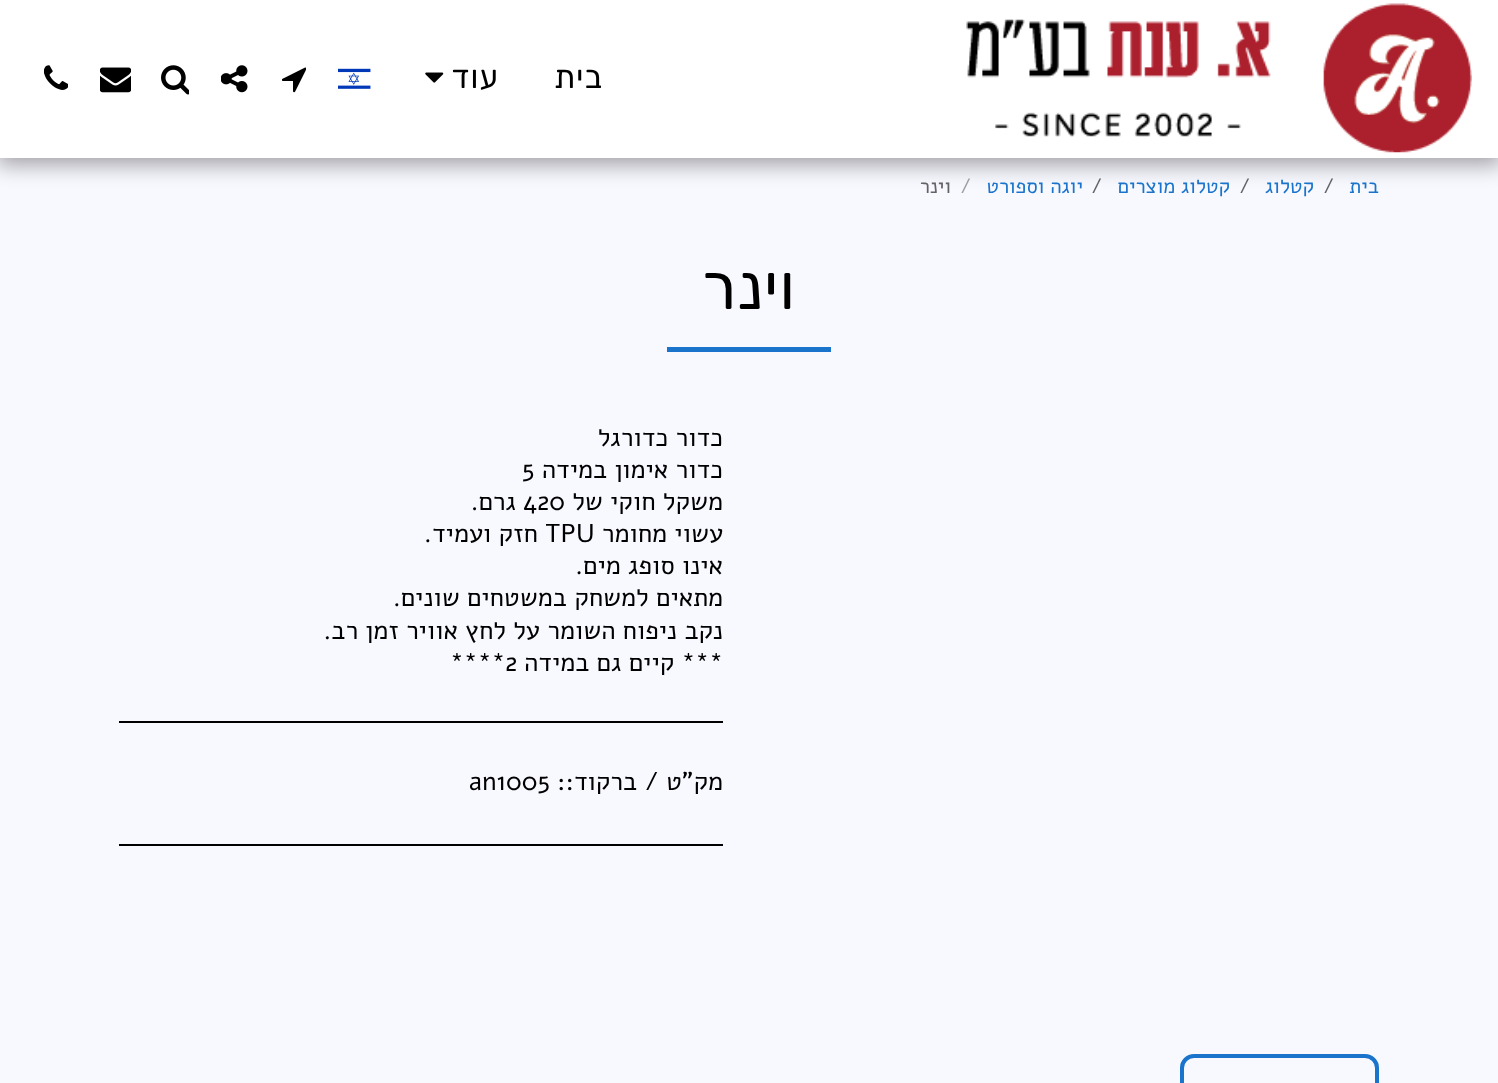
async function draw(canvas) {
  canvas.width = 1498;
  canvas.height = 1083;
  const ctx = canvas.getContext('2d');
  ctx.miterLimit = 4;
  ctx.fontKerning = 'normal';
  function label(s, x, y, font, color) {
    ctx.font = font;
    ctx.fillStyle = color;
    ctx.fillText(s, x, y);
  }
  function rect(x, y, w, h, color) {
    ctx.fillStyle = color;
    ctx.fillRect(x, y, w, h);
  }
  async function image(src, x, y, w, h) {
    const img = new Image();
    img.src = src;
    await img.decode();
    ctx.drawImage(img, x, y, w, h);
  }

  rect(0, 0, 1498, 1083, '#f8f8ff');
  ctx.fillStyle = '#00000059';
  ctx.filter = 'blur(10.5px)';
  ctx.beginPath();
  ctx.rect(-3, 0, 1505, 165);
  ctx.fill();
  ctx.filter = 'none';
  rect(0, 0, 1498, 158, '#fff');
  await image('assets/img1.png', 966, 3, 506, 150);
  ctx.letterSpacing = '1px';
  ctx.direction = 'rtl';
  label('בית', 603, 88, '32px Rubik', '#000');
  label('עוד', 499, 88, '32px Rubik', '#000');
  await image('assets/img2.png', 425, 72, 19, 11);
  await image('assets/img3.png', 338, 68, 33, 21);
  await image('assets/img4.png', 282, 67, 24, 26);
  await image('assets/img5.png', 221, 65, 27, 28);
  await image('assets/img6.png', 161, 65, 28, 30);
  await image('assets/img7.png', 100, 67, 31, 26);
  await image('assets/img8.png', 44, 65, 24, 25);
  ctx.letterSpacing = '0px';
  label('בית', 1379, 193, '20.5px Alef', '#1a74cb');
  ctx.direction = 'ltr';
  label('/', 1323, 193, '20.5px Alef', '#636366');
  ctx.direction = 'rtl';
  label('קטלוג', 1314, 193, '20.5px Alef', '#1a74cb');
  ctx.direction = 'ltr';
  label('/', 1239, 193, '20.5px Alef', '#636366');
  ctx.direction = 'rtl';
  label('קטלוג מוצרים', 1230, 193, '20.5px Alef', '#1a74cb');
  ctx.direction = 'ltr';
  label('/', 1091, 193, '20.5px Alef', '#636366');
  ctx.direction = 'rtl';
  label('יוגה וספורט', 1083, 193, '20.5px Alef', '#1a74cb');
  ctx.direction = 'ltr';
  label('/', 960, 193, '20.5px Alef', '#9f9fa3');
  ctx.direction = 'rtl';
  label('וינר', 951, 193, '20.5px Alef', '#636366');
  rect(667, 347, 164, 5, '#1a74cb');
  ctx.letterSpacing = '1px';
  label('וינר', 796, 309, '63px Rubik', '#000');
  ctx.letterSpacing = '0px';
  label('כדור כדורגל', 723, 446, '25.75px Alef', '#000');
  label('כדור אימון במידה', 723, 478, '25.75px Alef', '#000');
  ctx.direction = 'ltr';
  label('5', 522, 478, '25.75px Alef', '#000');
  ctx.direction = 'rtl';
  label('משקל חוקי של', 723, 510, '25.75px Alef', '#000');
  ctx.direction = 'ltr';
  label('420', 523, 510, '25.75px Alef', '#000');
  ctx.direction = 'rtl';
  label('גרם.', 516, 510, '25.75px Alef', '#000');
  label('עשוי מחומר', 723, 542, '25.75px Alef', '#000');
  ctx.direction = 'ltr';
  label('TPU', 545, 542, '25.75px Alef', '#000');
  ctx.direction = 'rtl';
  label('חזק ועמיד.', 538, 542, '25.75px Alef', '#000');
  label('אינו סופג מים.', 723, 574, '25.75px Alef', '#000');
  label('מתאים למשחק במשטחים שונים.', 723, 606, '25.75px Alef', '#000');
  label('נקב ניפוח השומר על לחץ אוויר זמן רב.', 723, 639, '25.75px Alef', '#000');
  label('*** קיים גם במידה', 723, 671, '25.75px Alef', '#000');
  ctx.direction = 'ltr';
  label('****2', 450, 671, '25.75px Alef', '#000');
  rect(119, 721, 604, 2, '#000');
  ctx.direction = 'rtl';
  label('מק"ט / ברקוד::', 723, 790, '25.75px Alef', '#000');
  ctx.direction = 'ltr';
  label('an1005', 469, 790, '25.75px Alef', '#000');
  rect(119, 844, 604, 2, '#000');
  ctx.beginPath();
  ctx.roundRect(1182, 1056, 195, 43, 12);
  ctx.strokeStyle = '#1a74cb';
  ctx.lineWidth = 4;
  ctx.stroke();
}

draw(document.querySelector('canvas'));
